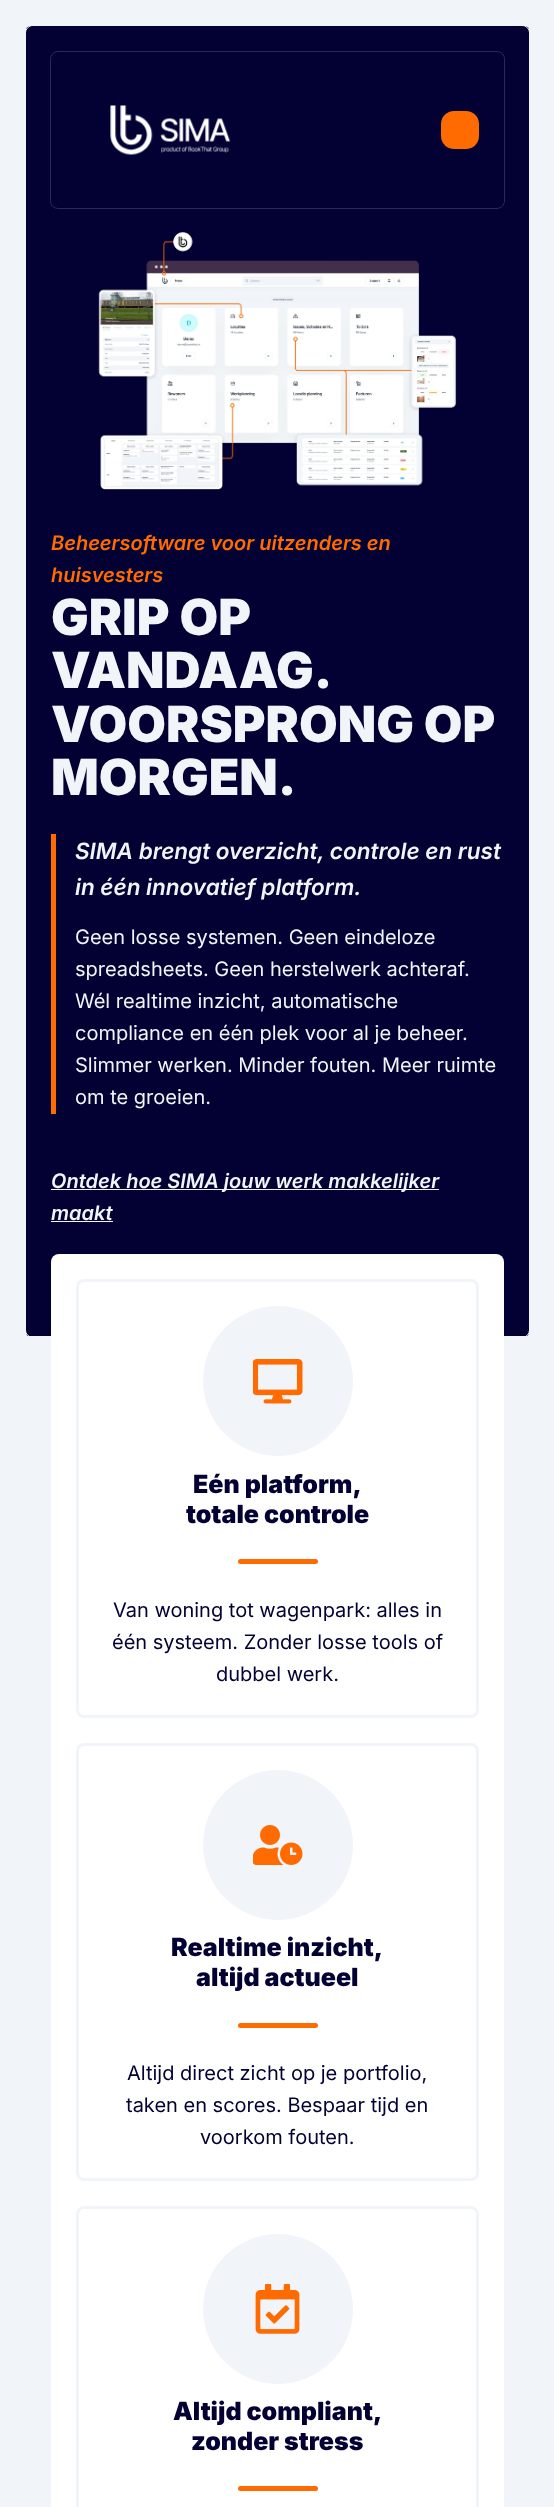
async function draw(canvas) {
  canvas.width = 554;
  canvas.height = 2507;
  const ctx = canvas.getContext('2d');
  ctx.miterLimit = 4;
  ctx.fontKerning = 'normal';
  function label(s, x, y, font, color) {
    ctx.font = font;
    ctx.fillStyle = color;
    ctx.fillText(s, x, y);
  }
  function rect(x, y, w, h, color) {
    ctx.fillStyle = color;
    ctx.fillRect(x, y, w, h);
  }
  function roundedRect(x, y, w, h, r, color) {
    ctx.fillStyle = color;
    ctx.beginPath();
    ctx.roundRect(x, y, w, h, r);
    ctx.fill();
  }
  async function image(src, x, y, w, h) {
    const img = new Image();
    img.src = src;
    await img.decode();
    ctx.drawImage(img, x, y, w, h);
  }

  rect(0, 0, 554, 2507, '#f1f5f9');
  ctx.save();
  ctx.beginPath();
  ctx.roundRect(25, 25, 505, 1313, 8);
  ctx.clip();
  rect(26, 26, 503, 1310, '#030033');
  ctx.restore();
  ctx.beginPath();
  ctx.roundRect(25.5, 25.5, 504, 1312, 7.5);
  ctx.strokeStyle = '#f1f5f9';
  ctx.stroke();
  roundedRect(26, 26, 503, 1310, 8, '#030033a3');
  ctx.beginPath();
  ctx.roundRect(50.5, 51.5, 454, 157, 7.5);
  ctx.strokeStyle = '#2b2954';
  ctx.stroke();
  await image('assets/img1.png', 110, 105, 121, 50);
  roundedRect(441, 111, 38, 38, 13, '#ff6b00');
  await image('assets/img2.png', 98, 232, 359, 259);
  label('Beheersoftware voor uitzenders en', 51, 550, 'italic 600 20px Inter', '#ff6b00');
  label('huisvesters', 51, 582, 'italic 600 20px Inter', '#ff6b00');
  label('GRIP OP', 51, 635, '900 50px Inter', '#f1f5f9');
  label('VANDAAG.', 51, 688, '900 50px Inter', '#f1f5f9');
  label('VOORSPRONG OP', 51, 742, '900 50px Inter', '#f1f5f9');
  label('MORGEN.', 51, 795, '900 50px Inter', '#f1f5f9');
  rect(51, 834, 5, 280, '#ff6b00');
  label('SIMA brengt overzicht, controle en rust', 75, 859, 'italic 600 22.5px Inter', '#f1f5f9');
  label('in één innovatief platform.', 75, 895, 'italic 600 22.5px Inter', '#f1f5f9');
  label('Geen losse systemen. Geen eindeloze', 75, 944, '20px Inter', '#f1f5f9');
  label('spreadsheets. Geen herstelwerk achteraf.', 75, 976, '20px Inter', '#f1f5f9');
  label('Wél realtime inzicht, automatische', 75, 1008, '20px Inter', '#f1f5f9');
  label('compliance en één plek voor al je beheer.', 75, 1040, '20px Inter', '#f1f5f9');
  label('Slimmer werken. Minder fouten. Meer ruimte', 75, 1072, '20px Inter', '#f1f5f9');
  label('om te groeien.', 75, 1104, '20px Inter', '#f1f5f9');
  rect(51, 1189, 388, 1, '#f1f5f9');
  label('Ontdek hoe SIMA jouw werk makkelijker', 51, 1188, 'italic 600 20px Inter', '#f1f5f9');
  label('maakt', 51, 1220, 'italic 600 20px Inter', '#f1f5f9');
  rect(51, 1221, 62, 1, '#f1f5f9');
  roundedRect(51, 1254, 453, 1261, 8, '#fff');
  ctx.beginPath();
  ctx.roundRect(77.5, 1280.5, 400, 436, 6.5);
  ctx.strokeStyle = '#f1f5f9';
  ctx.lineWidth = 3;
  ctx.stroke();
  ctx.fillStyle = '#f1f5f9';
  ctx.beginPath();
  ctx.arc(278, 1381, 75, 0, 2 * Math.PI);
  ctx.fill();
  await image('assets/img3.png', 253, 1359, 50, 45);
  label('Eén platform,', 193, 1493, '900 25px Inter', '#030033');
  label('totale controle', 186, 1523, '900 25px Inter', '#030033');
  roundedRect(238, 1559, 80, 5, 2.5, '#ff6b00');
  label('Van woning tot wagenpark: alles in', 113, 1617, '20px Inter', '#030033');
  label('één systeem. Zonder losse tools of', 112, 1649, '20px Inter', '#030033');
  label('dubbel werk.', 216, 1681, '20px Inter', '#030033');
  ctx.beginPath();
  ctx.roundRect(77.5, 1744.5, 400, 435, 6.5);
  ctx.stroke();
  ctx.fillStyle = '#f1f5f9';
  ctx.beginPath();
  ctx.arc(278, 1845, 75, 0, 2 * Math.PI);
  ctx.fill();
  await image('assets/img4.png', 253, 1825, 50, 40);
  label('Realtime inzicht,', 171, 1956, '900 25px Inter', '#030033');
  label('altijd actueel', 196, 1986, '900 25px Inter', '#030033');
  roundedRect(238, 2023, 80, 5, 2.5, '#ff6b00');
  label('Altijd direct zicht op je portfolio,', 127, 2080, '20px Inter', '#030033');
  label('taken en scores. Bespaar tijd en', 126, 2112, '20px Inter', '#030033');
  label('voorkom fouten.', 200, 2144, '20px Inter', '#030033');
  ctx.beginPath();
  ctx.roundRect(77.5, 2207.5, 400, 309, 6.5);
  ctx.stroke();
  ctx.fillStyle = '#f1f5f9';
  ctx.beginPath();
  ctx.arc(278, 2309, 75, 0, 2 * Math.PI);
  ctx.fill();
  await image('assets/img5.png', 255, 2284, 45, 50);
  label('Altijd compliant,', 173, 2420, '900 25px Inter', '#030033');
  label('zonder stress', 191, 2450, '900 25px Inter', '#030033');
  roundedRect(238, 2486, 80, 5, 2.5, '#ff6b00');
}

draw(document.querySelector('canvas'));
